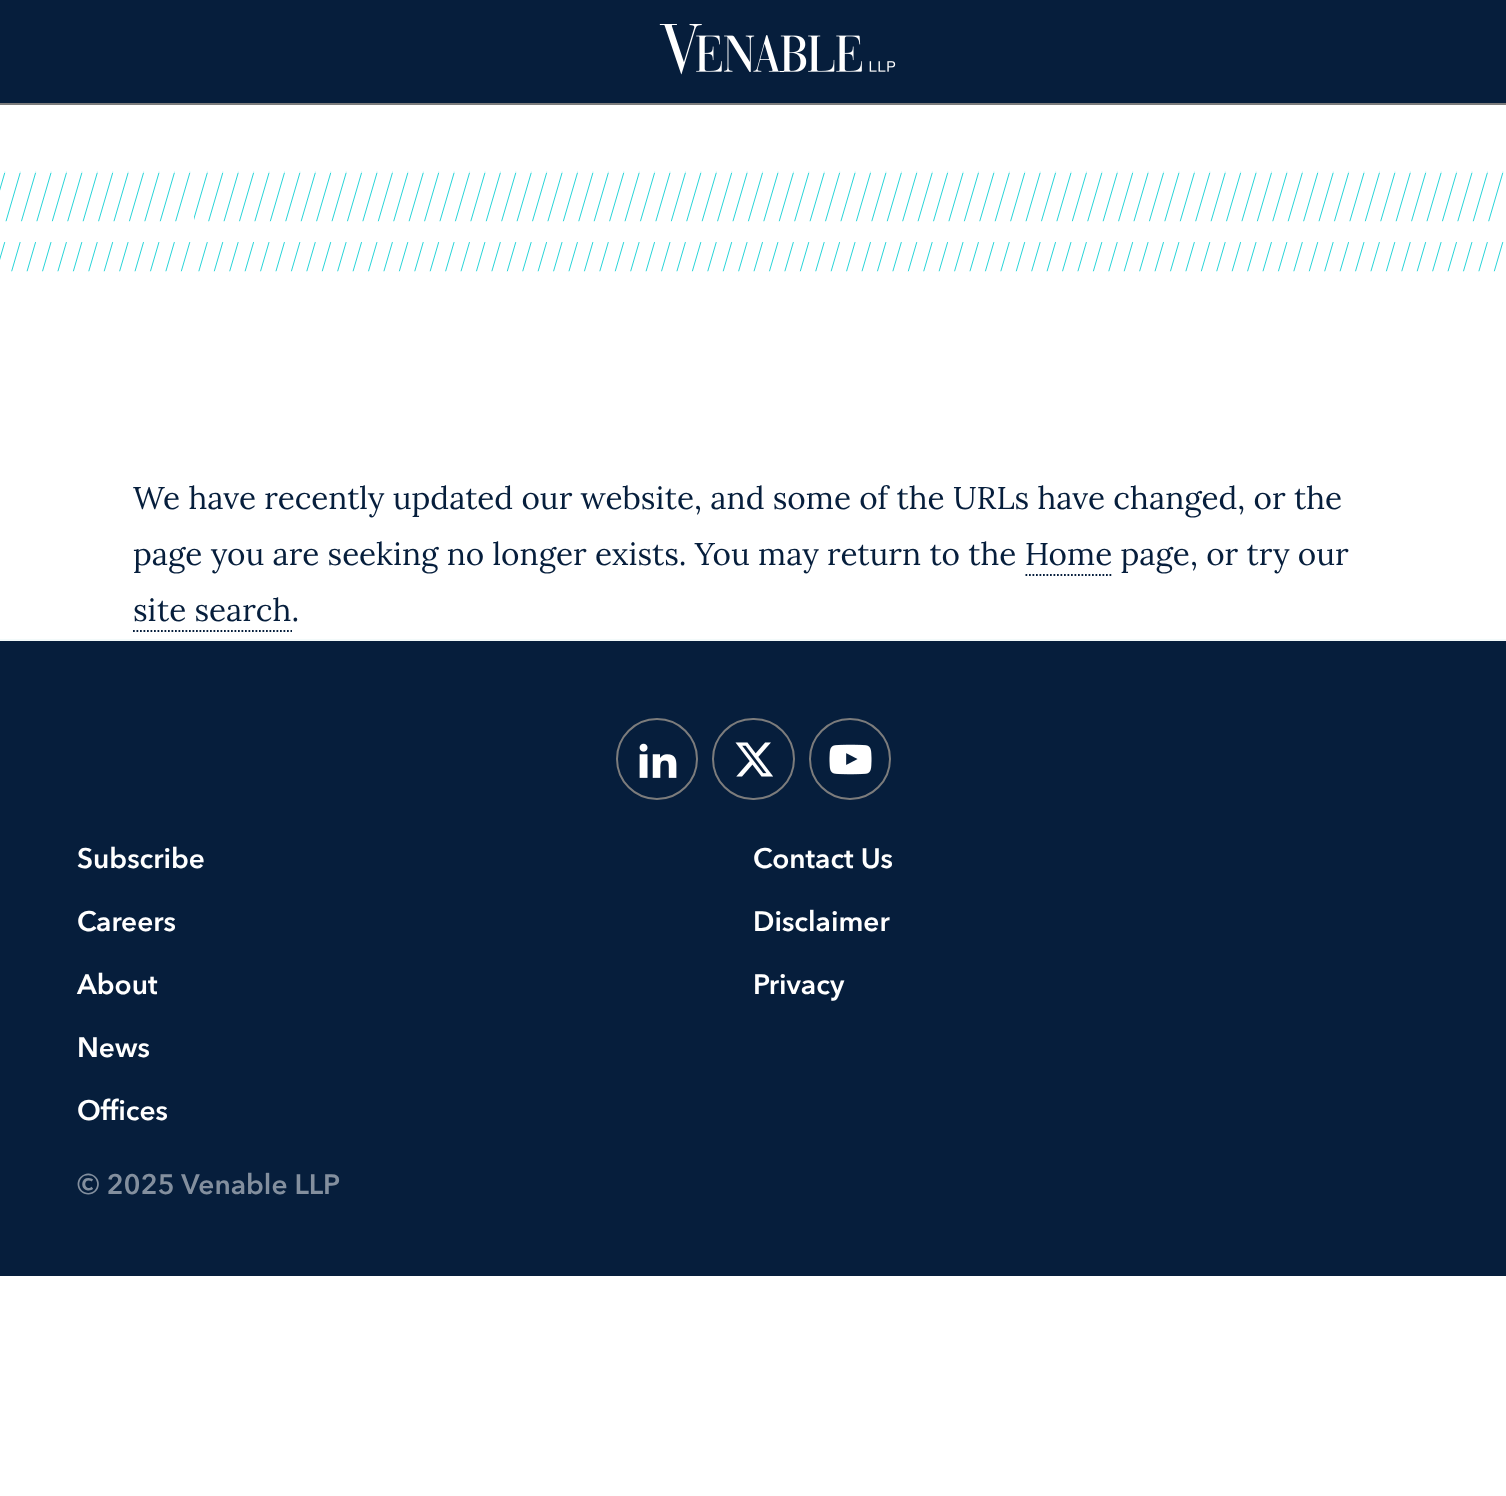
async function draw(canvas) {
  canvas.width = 1506;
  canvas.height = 1496;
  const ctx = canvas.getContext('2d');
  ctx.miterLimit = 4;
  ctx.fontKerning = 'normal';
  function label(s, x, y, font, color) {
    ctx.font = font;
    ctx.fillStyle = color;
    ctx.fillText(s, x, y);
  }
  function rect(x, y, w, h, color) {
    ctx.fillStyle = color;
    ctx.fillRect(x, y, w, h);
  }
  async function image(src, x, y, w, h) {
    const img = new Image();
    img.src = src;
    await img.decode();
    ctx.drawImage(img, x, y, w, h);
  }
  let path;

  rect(0, 0, 1506, 1496, '#fff');
  rect(0, 0, 1506, 103, '#061e3c');
  rect(0, 103, 1506, 2, '#7c7c7c');
  await image('assets/img1.png', 659, 24, 237, 51);
  await image('assets/img2.png', 0, 171, 1504, 101);
  label('We have recently updated our website, and some of the URLs have changed, or the', 133, 509, '31.5px Lora', '#061e3c');
  label('page you are seeking no longer exists. You may return to the Home page, or try our', 133, 565, '31.5px Lora', '#061e3c');
  path = new Path2D('M1025.5 575H1113');
  ctx.strokeStyle = '#061e3c';
  ctx.lineWidth = 1.8;
  ctx.setLineDash([1.75, 1.75]);
  ctx.stroke(path);
  label('site search.', 133, 621, '31.5px Lora', '#061e3c');
  path = new Path2D('M133 631H292');
  ctx.stroke(path);
  rect(0, 641, 1506, 635, '#061e3c');
  rect(0, 639, 1506, 2, '#f3fafa');
  ctx.beginPath();
  ctx.arc(657, 759, 40, 0, 2 * Math.PI);
  ctx.strokeStyle = '#7c7c7c';
  ctx.lineWidth = 2;
  ctx.setLineDash([]);
  ctx.stroke();
  await image('assets/img3.png', 639, 743, 38, 35);
  ctx.beginPath();
  ctx.roundRect(713, 719, 81, 80, 40);
  ctx.stroke();
  await image('assets/img4.png', 735, 742, 38, 35);
  ctx.beginPath();
  ctx.arc(850, 759, 40, 0, 2 * Math.PI);
  ctx.stroke();
  await image('assets/img5.png', 829, 744, 43, 31);
  label('Subscribe', 77, 868, 'bold 28px "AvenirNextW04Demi"', '#fff');
  label('Careers', 77, 931, 'bold 28px "AvenirNextW04Demi"', '#fff');
  label('About', 77, 994, 'bold 28px "AvenirNextW04Demi"', '#fff');
  label('News', 77, 1057, 'bold 28px "AvenirNextW04Demi"', '#fff');
  label('Offices', 77, 1120, 'bold 28px "AvenirNextW04Demi"', '#fff');
  label('Contact Us', 753, 868, 'bold 28px "AvenirNextW04Demi"', '#fff');
  label('Disclaimer', 753, 931, 'bold 28px "AvenirNextW04Demi"', '#fff');
  label('Privacy', 753, 994, 'bold 28px "AvenirNextW04Demi"', '#fff');
  label('© 2025 Venable LLP', 77, 1194, 'bold 28px "AvenirNextW04Demi"', '#838f9e');
}

draw(document.querySelector('canvas'));
